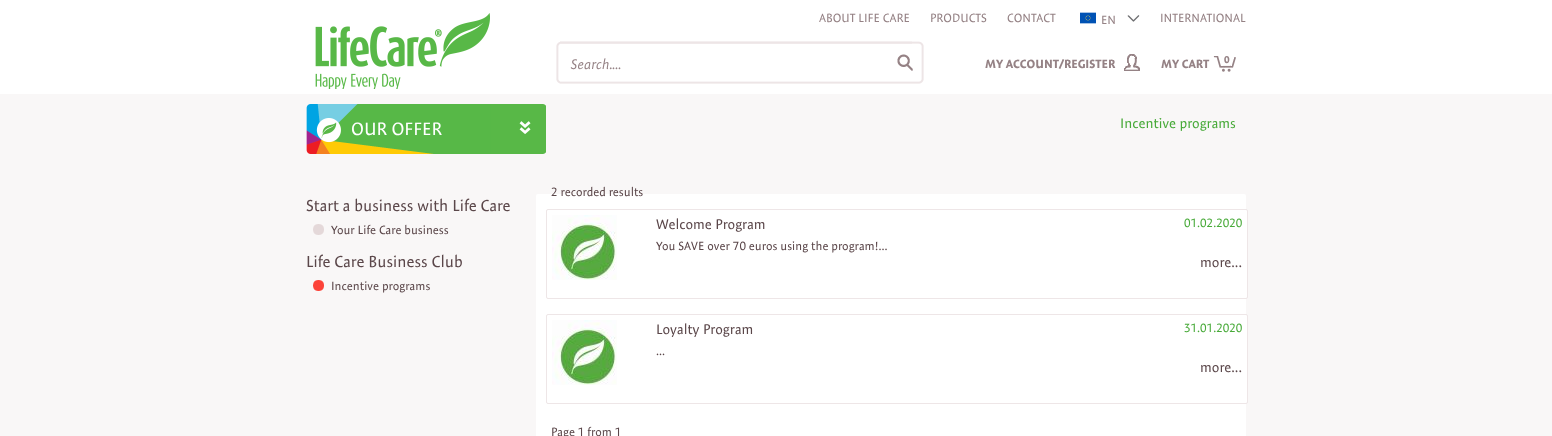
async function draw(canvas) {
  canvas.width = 1552;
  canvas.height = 436;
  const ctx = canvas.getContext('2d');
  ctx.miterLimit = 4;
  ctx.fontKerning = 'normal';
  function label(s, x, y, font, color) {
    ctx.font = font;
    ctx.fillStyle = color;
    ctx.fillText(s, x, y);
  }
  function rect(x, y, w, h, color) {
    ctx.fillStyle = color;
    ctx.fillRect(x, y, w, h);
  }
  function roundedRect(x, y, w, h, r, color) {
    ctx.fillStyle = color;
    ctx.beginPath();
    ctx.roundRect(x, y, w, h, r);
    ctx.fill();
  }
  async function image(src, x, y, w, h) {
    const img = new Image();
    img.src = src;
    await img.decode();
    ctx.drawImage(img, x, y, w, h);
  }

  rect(0, 0, 1552, 436, '#f9f7f7');
  rect(0, 0, 1552, 94, '#fff');
  await image('assets/img1.png', 315, 13, 175, 76);
  label('ABOUT LIFE CARE', 819, 22, '12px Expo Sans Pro', '#958285');
  label('PRODUCTS', 930, 22, '12px Expo Sans Pro', '#958285');
  label('CONTACT', 1007, 22, '12px Expo Sans Pro', '#958285');
  await image('assets/img2.png', 1080, 12, 16, 12);
  label('EN', 1101, 24, '12px Expo Sans Pro', '#958285');
  await image('assets/img3.png', 1127, 15, 13, 7);
  label('INTERNATIONAL', 1160, 22, '12px Expo Sans Pro', '#958285');
  await image('assets/img4.png', 556, 42, 4, 42);
  await image('assets/img5.png', 560, 41, 364, 43);
  label('Search....', 571, 69, 'italic 14px Expo Sans Pro', '#958285');
  label('MY ACCOUNT/REGISTER', 985, 68, 'bold 12px Expo Sans Pro', '#958285');
  await image('assets/img6.png', 1124, 54, 16, 17);
  await image('assets/img7.png', 1213, 56, 23, 16);
  label('MY CART', 1161, 68, 'bold 12px Expo Sans Pro', '#958285');
  label('0', 1224, 63, 'bold 10px Expo Sans Pro', '#958285');
  await image('assets/img8.png', 306, 104, 240, 50);
  label('OUR OFFER', 351, 135, '18px Expo Sans Pro', '#fff');
  await image('assets/img9.png', 519, 121, 12, 13);
  label('Incentive programs', 1120, 128, '14px Expo Sans Pro', '#48aa39');
  label('Start a business with Life Care', 306, 211, '16px Expo Sans Pro', '#5b474a');
  await image('assets/img10.png', 313, 224, 11, 11);
  label('Your Life Care business', 331, 234, '12px Expo Sans Pro', '#5b474a');
  label('Life Care Business Club', 306, 267, '16px Expo Sans Pro', '#5b474a');
  await image('assets/img11.png', 313, 280, 11, 11);
  label('Incentive programs', 331, 290, '12px Expo Sans Pro', '#5b474a');
  roundedRect(536, 194, 710, 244, 2, '#fff');
  label('2 recorded results', 551, 196, '12px Expo Sans Pro', '#5b474a');
  ctx.fillStyle = '#fff';
  ctx.beginPath();
  ctx.roundRect(546.5, 209.5, 701, 89, 1.5);
  ctx.fill();
  ctx.strokeStyle = '#eee6e7';
  ctx.stroke();
  await image('assets/img12.png', 552, 215, 65, 65);
  label('Welcome Program', 656, 229, '14px Expo Sans Pro', '#5b474a');
  label('01.02.2020', 1184, 227, '12px Expo Sans Pro', '#48aa39');
  label('You SAVE over 70 euros using the program!...', 656, 250, '12px Expo Sans Pro', '#5b474a');
  label('more...', 1200, 267, '14px Expo Sans Pro', '#5b474a');
  ctx.fillStyle = '#fff';
  ctx.beginPath();
  ctx.roundRect(546.5, 314.5, 701, 89, 1.5);
  ctx.fill();
  ctx.stroke();
  await image('assets/img12.png', 552, 320, 65, 65);
  label('Loyalty Program', 656, 334, '14px Expo Sans Pro', '#5b474a');
  label('31.01.2020', 1184, 332, '12px Expo Sans Pro', '#48aa39');
  label('...', 656, 355, '12px Expo Sans Pro', '#5b474a');
  label('more...', 1200, 372, '14px Expo Sans Pro', '#5b474a');
  label('Page 1 from 1', 551, 436, '12px Expo Sans Pro', '#5b474a');
}

draw(document.querySelector('canvas'));
